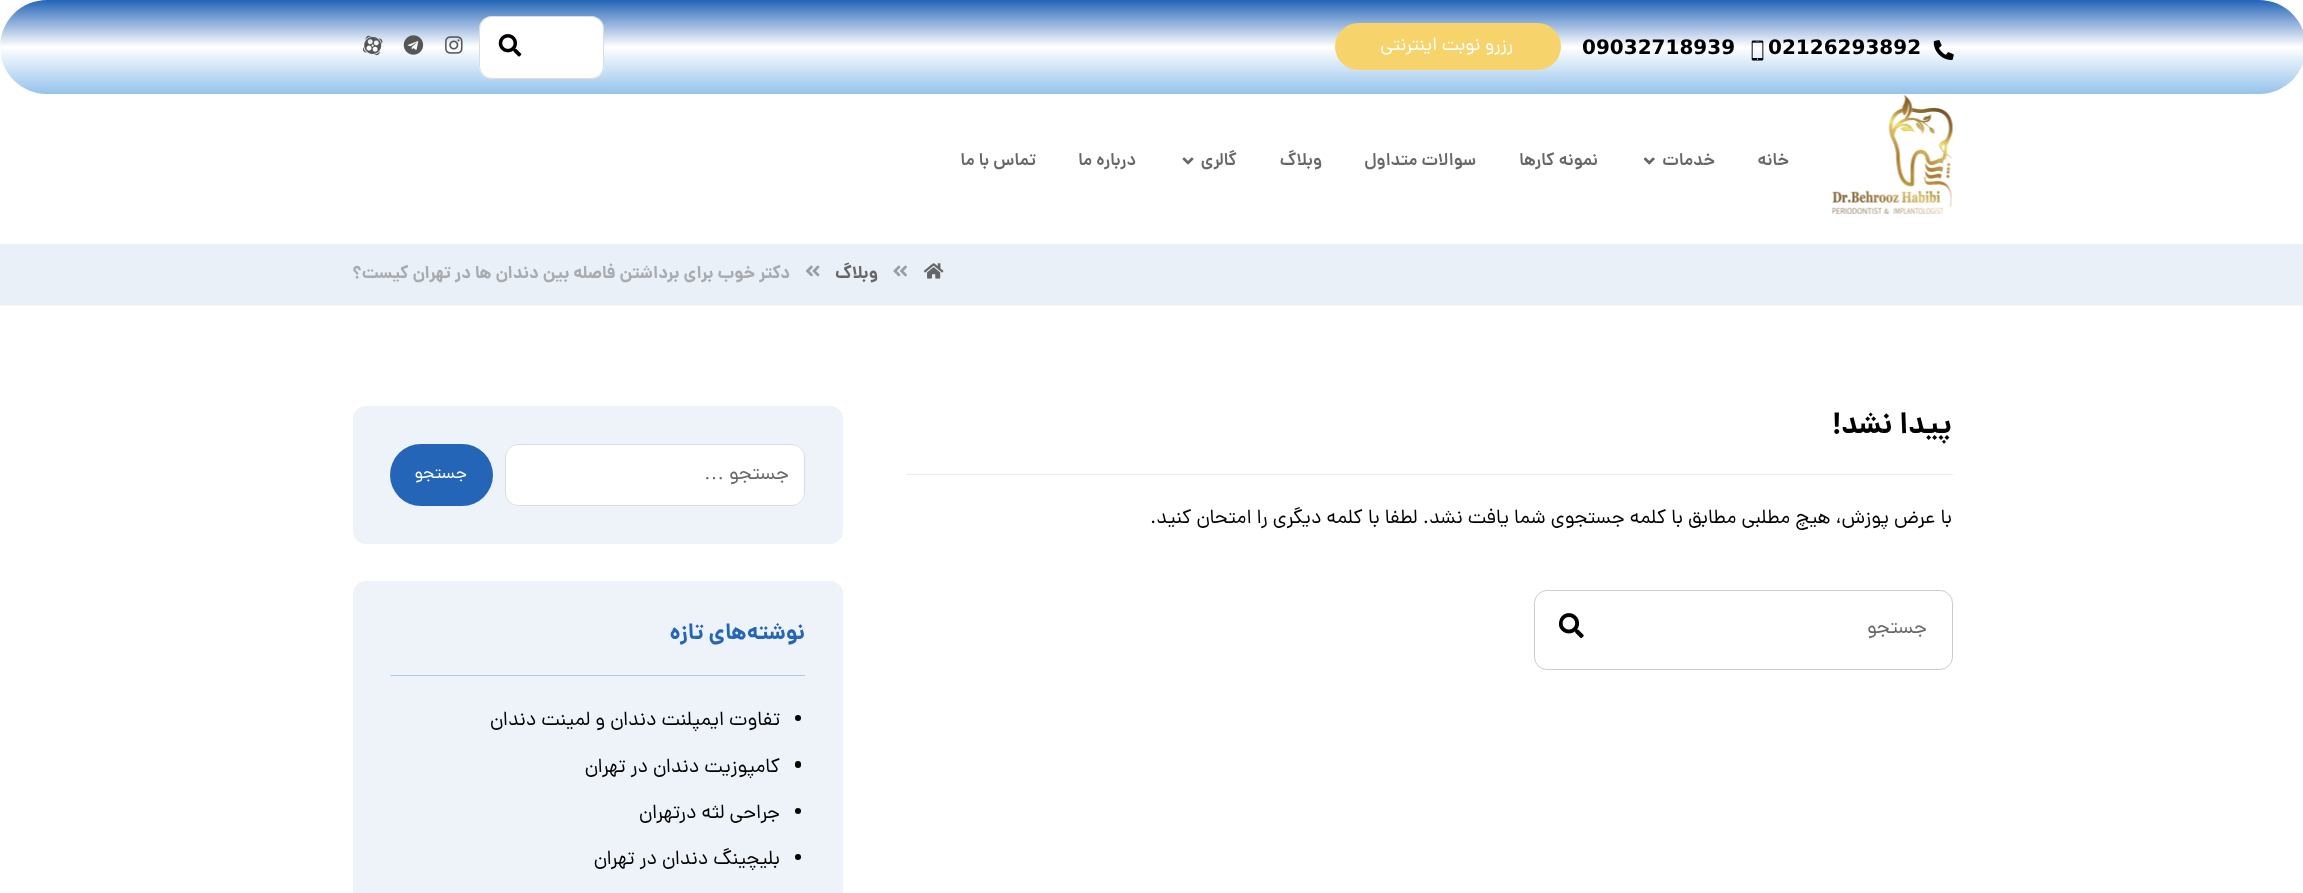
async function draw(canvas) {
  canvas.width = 2303;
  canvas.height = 893;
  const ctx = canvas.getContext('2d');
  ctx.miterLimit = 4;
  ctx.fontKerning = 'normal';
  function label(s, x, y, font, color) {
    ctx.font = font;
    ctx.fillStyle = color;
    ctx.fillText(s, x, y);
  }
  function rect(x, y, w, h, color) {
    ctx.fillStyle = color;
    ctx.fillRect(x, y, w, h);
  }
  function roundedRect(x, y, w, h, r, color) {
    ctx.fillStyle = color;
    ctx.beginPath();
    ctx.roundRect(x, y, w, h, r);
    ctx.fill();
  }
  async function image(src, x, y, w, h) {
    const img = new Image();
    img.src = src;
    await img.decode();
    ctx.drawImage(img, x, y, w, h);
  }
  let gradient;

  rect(0, 0, 2303, 893, '#fff');
  gradient = ctx.createLinearGradient(1153, 94, 1153, 0);
  gradient.addColorStop(0, '#95c3ec');
  gradient.addColorStop(0.5, '#fff');
  gradient.addColorStop(1, '#2465b8');
  ctx.fillStyle = gradient;
  ctx.beginPath();
  ctx.roundRect(0, 0, 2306, 94, 47);
  ctx.fill();
  await image('assets/img1.png', 1933, 40, 21, 20);
  label('𝟬𝟮𝟭𝟮𝟲𝟮𝟵𝟯𝟴𝟵𝟮', 1768, 54, 'bold 20px DejaVu Sans', '#000');
  await image('assets/img2.png', 1751, 40, 13, 21);
  label('𝟬𝟵𝟬𝟯𝟮𝟳𝟭𝟴𝟵𝟯𝟵', 1582, 54, 'bold 20px DejaVu Sans', '#000');
  roundedRect(1335, 23, 226, 47, 23.5, '#f6d36b');
  ctx.direction = 'rtl';
  label('رزرو نوبت اینترنتی', 1513, 50, '18.75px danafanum', '#fff');
  roundedRect(479, 16, 125, 63, 13, '#fff');
  ctx.beginPath();
  ctx.roundRect(479.5, 16.5, 124, 62, 12.5);
  ctx.strokeStyle = '#a7a7a766';
  ctx.stroke();
  await image('assets/img3.png', 498, 34, 24, 23);
  await image('assets/img4.png', 445, 36, 18, 18);
  await image('assets/img5.png', 403, 35, 21, 20);
  await image('assets/img6.png', 362, 35, 21, 21);
  await image('assets/img7.png', 1832, 95, 121, 119);
  label('خانه', 1789, 165, '600 17.5px danafanum', '#666');
  label('خدمات', 1715, 165, '600 17.5px danafanum', '#666');
  await image('assets/img8.png', 1643, 157, 12, 8);
  label('نمونه کارها', 1598, 165, '600 17.5px danafanum', '#666');
  label('سوالات متداول', 1476, 165, '600 17.5px danafanum', '#666');
  label('وبلاگ', 1322, 165, '600 17.5px danafanum', '#666');
  label('گالری', 1237, 165, '600 17.5px danafanum', '#666');
  await image('assets/img9.png', 1182, 157, 12, 8);
  label('درباره ما', 1136, 165, '600 17.5px danafanum', '#666');
  label('تماس با ما', 1036, 165, '600 17.5px danafanum', '#666');
  rect(0, 244, 2303, 61, '#eaf0f8');
  rect(0, 305, 2303, 1, '#f4f4f4');
  await image('assets/img10.png', 923, 263, 21, 16);
  await image('assets/img11.png', 893, 265, 14, 12);
  label('وبلاگ', 878, 278, 'bold 17.5px danafanum', '#666');
  await image('assets/img12.png', 806, 265, 14, 12);
  label('دکتر خوب برای برداشتن فاصله بین دندان ها در تهران کیست؟', 790, 278, 'bold 17.5px danafanum', '#a8abaf');
  rect(906, 474, 1047, 1, '#ededed');
  label('پیدا نشد!', 1952, 433, 'bold 30px danafanum', '#000');
  label('با عرض پوزش، هیچ مطلبی مطابق با کلمه جستجوی شما یافت نشد. لطفا با کلمه دیگری را امتحان کنید.', 1952, 523, '20px danafanum', '#000');
  ctx.beginPath();
  ctx.roundRect(1534.5, 590.5, 418, 79, 12.5);
  ctx.strokeStyle = '#ccc';
  ctx.stroke();
  label('جستجو', 1927, 633, '20px danafanum', '#666');
  await image('assets/img13.png', 1559, 613, 25, 26);
  roundedRect(353, 406, 490, 138, 13, '#eef3f9');
  roundedRect(505, 444, 300, 62, 13, '#fff');
  ctx.beginPath();
  ctx.roundRect(505.5, 444.5, 299, 61, 12.5);
  ctx.strokeStyle = '#a7a7a766';
  ctx.stroke();
  label('جستجو', 789, 479, '20px danafanum', '#666');
  label('…', 724, 479, '20px Liberation Serif', '#666');
  roundedRect(390, 444, 103, 62, 31, '#2465b8');
  label('جستجو', 467, 478, '17.5px danafanum', '#fff');
  roundedRect(353, 581, 490, 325, 13, '#eef3fa');
  rect(390, 675, 415, 1, '#b1c8e6');
  label('نوشته‌های تازه', 805, 639, 'bold 22.5px danafanum', '#2465b8');
  ctx.fillStyle = '#000';
  ctx.beginPath();
  ctx.arc(798, 718, 3, 0, 2 * Math.PI);
  ctx.fill();
  label('تفاوت ایمپلنت دندان و لمینت دندان', 780, 725, '20px danafanum', '#000');
  roundedRect(795, 761, 6, 7, 3, '#000');
  label('کامپوزیت دندان در تهران', 780, 772, '20px danafanum', '#000');
  ctx.beginPath();
  ctx.arc(798, 811, 3, 0, 2 * Math.PI);
  ctx.fill();
  label('جراحی لثه درتهران', 780, 818, '20px danafanum', '#000');
  ctx.beginPath();
  ctx.arc(798, 857, 3, 0, 2 * Math.PI);
  ctx.fill();
  label('بلیچینگ دندان در تهران', 780, 864, '20px danafanum', '#000');
}

draw(document.querySelector('canvas'));
